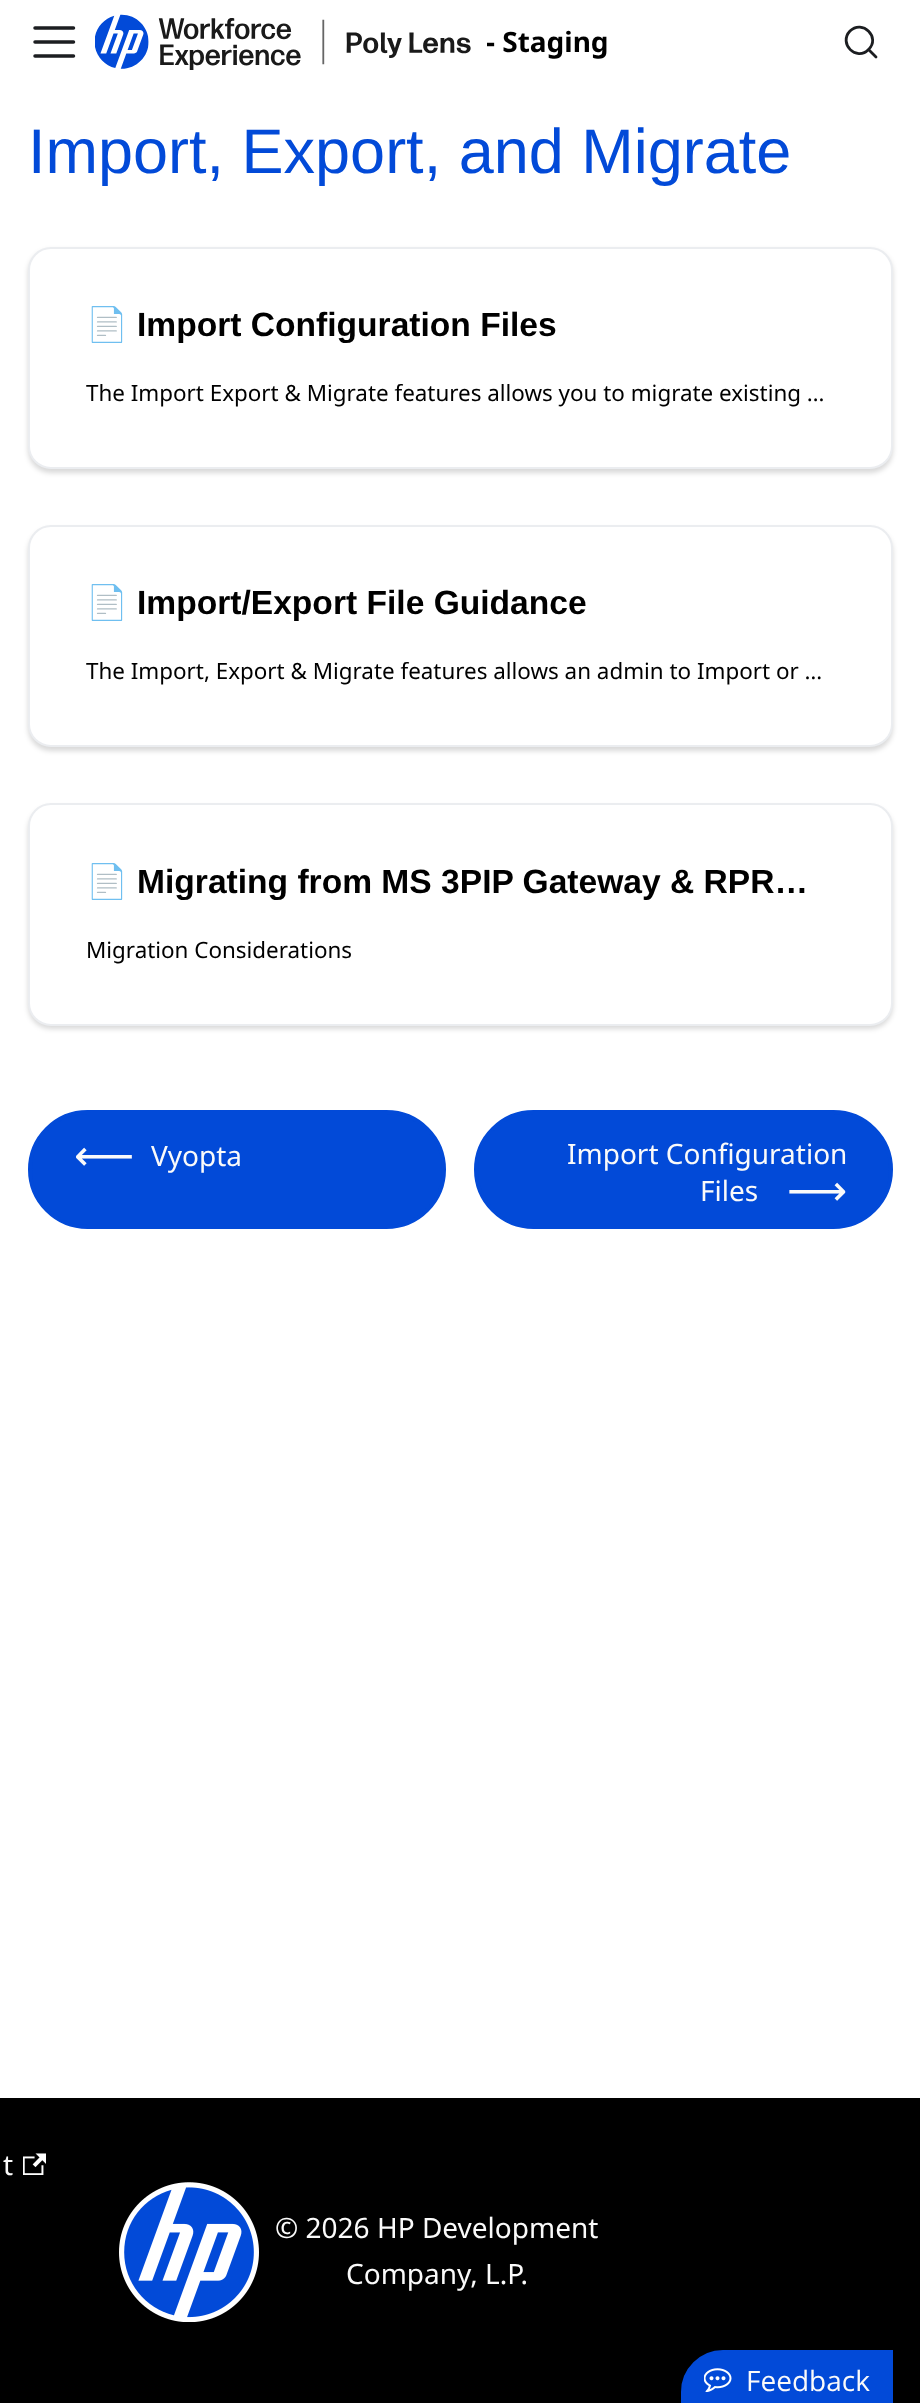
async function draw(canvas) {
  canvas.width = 920;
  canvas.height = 2403;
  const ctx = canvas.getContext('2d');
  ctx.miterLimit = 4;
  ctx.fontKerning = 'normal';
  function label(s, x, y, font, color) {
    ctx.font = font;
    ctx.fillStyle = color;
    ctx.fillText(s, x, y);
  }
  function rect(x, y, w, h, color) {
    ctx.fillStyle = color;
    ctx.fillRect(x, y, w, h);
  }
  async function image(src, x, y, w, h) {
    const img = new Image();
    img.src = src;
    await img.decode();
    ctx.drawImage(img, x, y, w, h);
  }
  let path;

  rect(0, 0, 920, 2403, '#fff');
  path = new Path2D('M35 28H73.5M35 42H73.5M35 56H73.5');
  ctx.strokeStyle = '#1c1e21';
  ctx.lineWidth = 3.5;
  ctx.lineCap = 'round';
  ctx.stroke(path);
  await image('assets/img1.png', 95, 14, 376, 56);
  ctx.save();
  ctx.beginPath();
  ctx.rect(487, 19, 122, 46);
  ctx.clip();
  label('- Staging', 486, 52, 'bold 28px Noto Sans', '#000');
  ctx.restore();
  path = new Path2D('M868.5 49.5L876 57L868.5 49.5C856.5 62 838 43.5 850 31C862.5 19 881 37.5 868.5 49.5Z');
  ctx.lineWidth = 2.8;
  ctx.lineJoin = 'round';
  ctx.stroke(path);
  label('Import, Export, and Migrate', 28, 173, '63px Liberation Sans', '#024ad8');
  ctx.fillStyle = '#00000026';
  ctx.filter = 'blur(2.5px)';
  ctx.beginPath();
  ctx.roundRect(28, 250, 865, 223, 23);
  ctx.fill();
  ctx.filter = 'none';
  ctx.fillStyle = '#fff';
  ctx.beginPath();
  ctx.roundRect(29, 248, 863, 220, 22);
  ctx.fill();
  ctx.strokeStyle = '#ebedf0';
  ctx.lineWidth = 2;
  ctx.lineJoin = 'miter';
  ctx.stroke();
  ctx.save();
  ctx.beginPath();
  ctx.rect(86, 305, 749, 42);
  ctx.clip();
  label('📄️', 86, 336, 'bold 33.6px Noto Color Emoji', '#000');
  ctx.restore();
  label('Import Configuration Files', 137, 336, 'bold 33.6px Liberation Sans', '#000');
  label('The Import Export & Migrate features allows you to migrate existing …', 86, 401, '22.4px Noto Sans', '#000');
  ctx.fillStyle = '#00000026';
  ctx.filter = 'blur(2.5px)';
  ctx.beginPath();
  ctx.roundRect(28, 529, 865, 222, 23);
  ctx.fill();
  ctx.filter = 'none';
  ctx.fillStyle = '#fff';
  ctx.beginPath();
  ctx.roundRect(29, 526, 863, 220, 22);
  ctx.fill();
  ctx.stroke();
  ctx.save();
  ctx.beginPath();
  ctx.rect(86, 583, 749, 42);
  ctx.clip();
  label('📄️', 86, 614, 'bold 33.6px Noto Color Emoji', '#000');
  ctx.restore();
  label('Import/Export File Guidance', 137, 614, 'bold 33.6px Liberation Sans', '#000');
  label('The Import, Export & Migrate features allows an admin to Import or …', 86, 679, '22.4px Noto Sans', '#000');
  ctx.fillStyle = '#00000026';
  ctx.filter = 'blur(2.5px)';
  ctx.beginPath();
  ctx.roundRect(28, 807, 865, 222, 23);
  ctx.fill();
  ctx.filter = 'none';
  ctx.fillStyle = '#fff';
  ctx.beginPath();
  ctx.roundRect(29, 804, 863, 221, 22);
  ctx.fill();
  ctx.stroke();
  ctx.save();
  ctx.beginPath();
  ctx.rect(86, 861, 749, 42);
  ctx.clip();
  label('📄️', 86, 893, 'bold 33.6px Noto Color Emoji', '#000');
  ctx.restore();
  label('Migrating from MS 3PIP Gateway & RPR…', 137, 893, 'bold 33.6px Liberation Sans', '#000');
  label('Migration Considerations', 86, 958, '22.4px Noto Sans', '#000');
  ctx.fillStyle = '#024ad8';
  ctx.beginPath();
  ctx.roundRect(30, 1112, 414, 115, 57.5);
  ctx.fill();
  ctx.strokeStyle = '#024ad8';
  ctx.lineWidth = 4;
  ctx.stroke();
  label('⟵', 74, 1170, '42px DejaVu Sans', '#fafafa');
  label('Vyopta', 151, 1166, '28px Noto Sans', '#fafafa');
  ctx.fillStyle = '#024ad8';
  ctx.beginPath();
  ctx.roundRect(476, 1112, 415, 115, 57.5);
  ctx.fill();
  ctx.stroke();
  label('Import Configuration', 567, 1164, '28px Noto Sans', '#fafafa');
  label('Files', 700, 1201, '28px Noto Sans', '#fafafa');
  label('⟶', 787, 1205, '42px DejaVu Sans', '#fafafa');
  rect(0, 2098, 920, 305, '#000');
  label('t', 3, 2175, '28px Noto Sans', '#fafafa');
  await image('assets/img2.png', 23, 2153, 23, 22);
  await image('assets/img3.png', 119, 2182, 140, 140);
  label('© 2026 HP Development', 275, 2238, '28px Noto Sans', '#fafafa');
  label('Company, L.P.', 346, 2284, '28px Noto Sans', '#fafafa');
  ctx.fillStyle = '#024ad8';
  path = new Path2D('M723 2351H892V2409H682V2392C682 2369.5 700.5 2351 723 2351Z');
  ctx.fill(path);
  ctx.lineWidth = 2;
  ctx.stroke(path);
  await image('assets/img4.png', 704, 2368, 28, 24);
  label('Feedback', 746, 2391, '28px Open Sans', '#fafafa');
}

draw(document.querySelector('canvas'));
